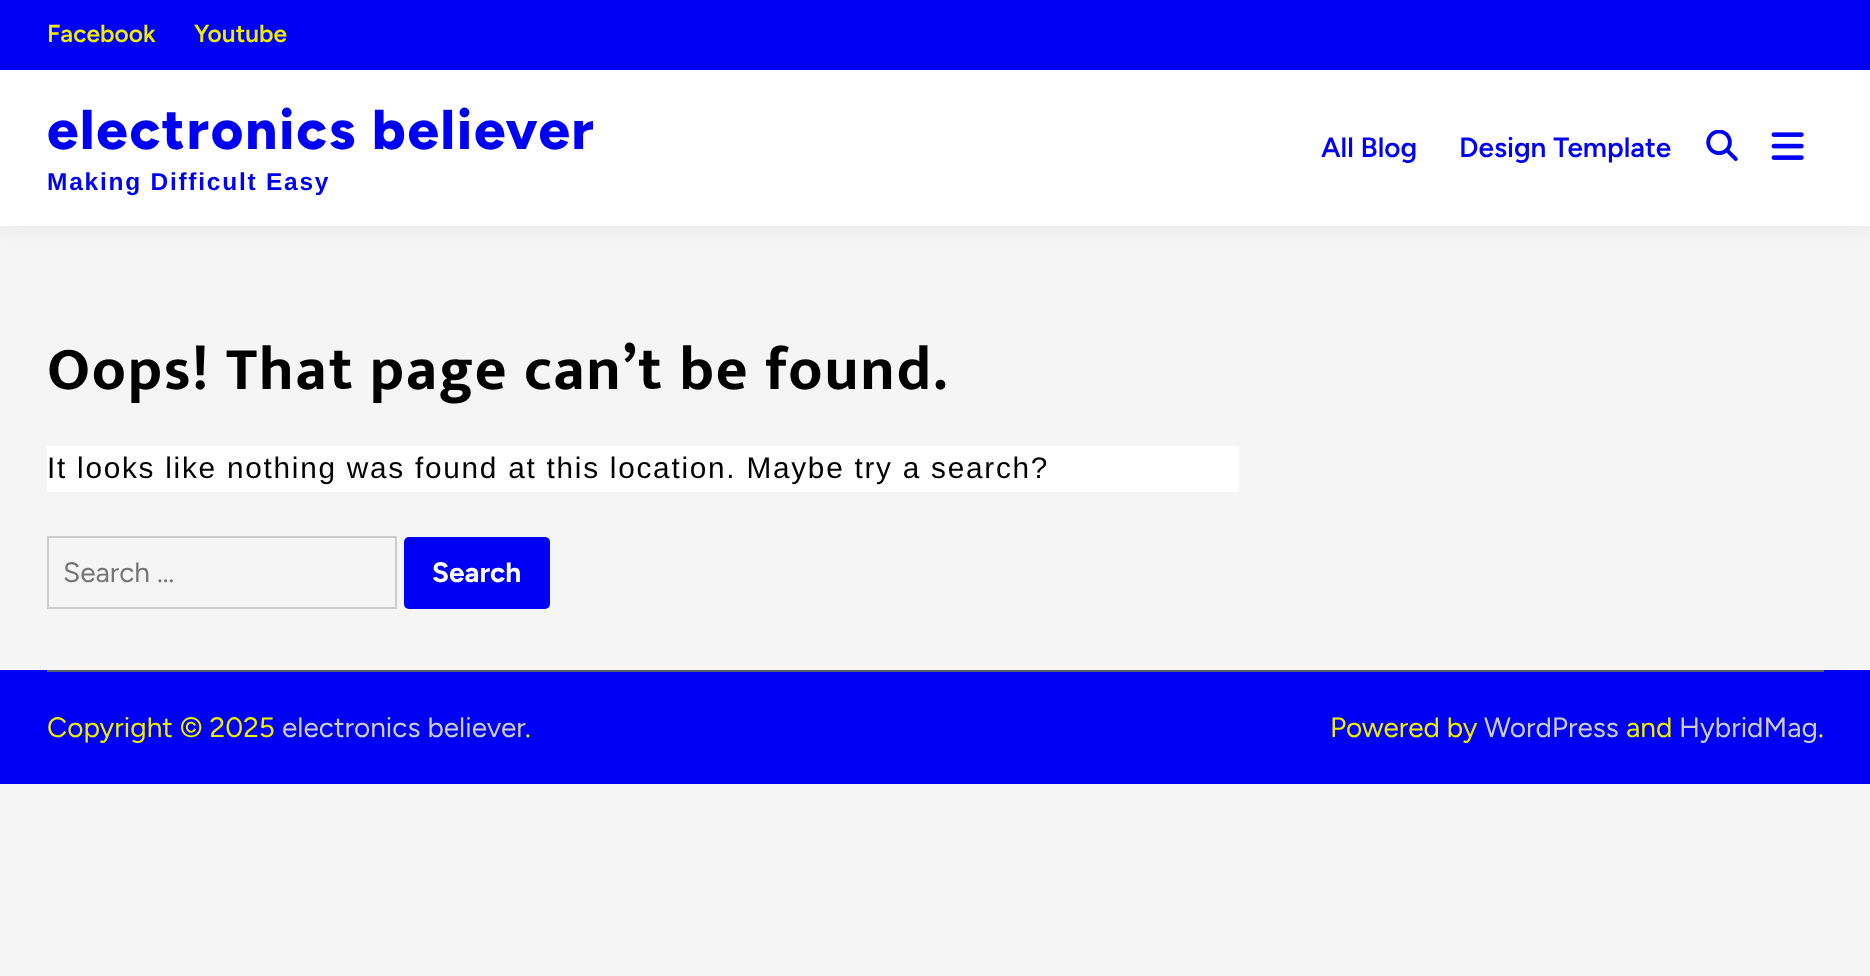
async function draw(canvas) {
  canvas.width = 1870;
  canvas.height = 976;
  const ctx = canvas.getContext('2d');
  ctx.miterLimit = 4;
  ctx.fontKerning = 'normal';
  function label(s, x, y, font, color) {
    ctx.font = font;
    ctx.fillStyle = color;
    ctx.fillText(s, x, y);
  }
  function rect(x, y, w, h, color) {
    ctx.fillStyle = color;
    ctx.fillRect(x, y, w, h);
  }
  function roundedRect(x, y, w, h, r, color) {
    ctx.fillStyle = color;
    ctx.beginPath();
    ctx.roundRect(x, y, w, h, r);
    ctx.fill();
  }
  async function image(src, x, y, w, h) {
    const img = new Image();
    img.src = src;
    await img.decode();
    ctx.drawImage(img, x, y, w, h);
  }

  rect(0, 0, 1870, 976, '#f5f5f5');
  ctx.fillStyle = '#0000000f';
  ctx.filter = 'blur(13px)';
  ctx.beginPath();
  ctx.rect(0, 0, 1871, 226);
  ctx.fill();
  ctx.filter = 'none';
  rect(0, 70, 1870, 156, '#fff');
  rect(0, 0, 1870, 70, '#0000f4');
  label('Facebook', 47, 42, '600 24.5px Figtree', '#eded00');
  label('Youtube', 194, 42, '600 24.5px Figtree', '#eded00');
  ctx.letterSpacing = '1.75px';
  label('electronics believer', 47, 149, '800 56px Figtree', '#0000f4');
  label('Making Difficult Easy', 47, 190, 'bold 24.5px Liberation Sans', '#0000f4');
  ctx.letterSpacing = '0px';
  label('All Blog', 1321, 157, '600 28px Figtree', '#0000f4');
  label('Design Template', 1459, 157, '600 28px Figtree', '#0000f4');
  await image('assets/img1.png', 1706, 130, 32, 31);
  await image('assets/img2.png', 1771, 132, 33, 28);
  ctx.letterSpacing = '1.75px';
  label('Oops! That page can’t be found.', 47, 389, 'bold 61.25px Mukta', '#000');
  rect(47, 446, 1192, 46, '#fff');
  label('It looks like nothing was found at this location. Maybe try a search?', 47, 478, '29.75px Liberation Sans', '#000');
  ctx.strokeStyle = '#ccc';
  ctx.lineWidth = 2;
  ctx.strokeRect(48, 537, 348, 71);
  ctx.letterSpacing = '0px';
  label('Search …', 63, 582, '28px Figtree', '#757575');
  roundedRect(404, 537, 146, 72, 5, '#0000f4');
  label('Search', 432, 582, 'bold 28px Figtree', '#fff');
  rect(0, 670, 1870, 114, '#0000f4');
  rect(47, 670, 1777, 2, '#595f64');
  label('Copyright © 2025', 47, 737, '28px Figtree', '#eded00');
  label('electronics believer', 282, 737, '28px Figtree', '#ccc');
  label('.', 525, 737, '28px Figtree', '#eded00');
  label('Powered by', 1330, 737, '28px Figtree', '#eded00');
  label('WordPress', 1484, 737, '28px Figtree', '#ccc');
  label('and', 1626, 737, '28px Figtree', '#eded00');
  label('HybridMag', 1679, 737, '28px Figtree', '#ccc');
  label('.', 1818, 737, '28px Figtree', '#eded00');
}

draw(document.querySelector('canvas'));
